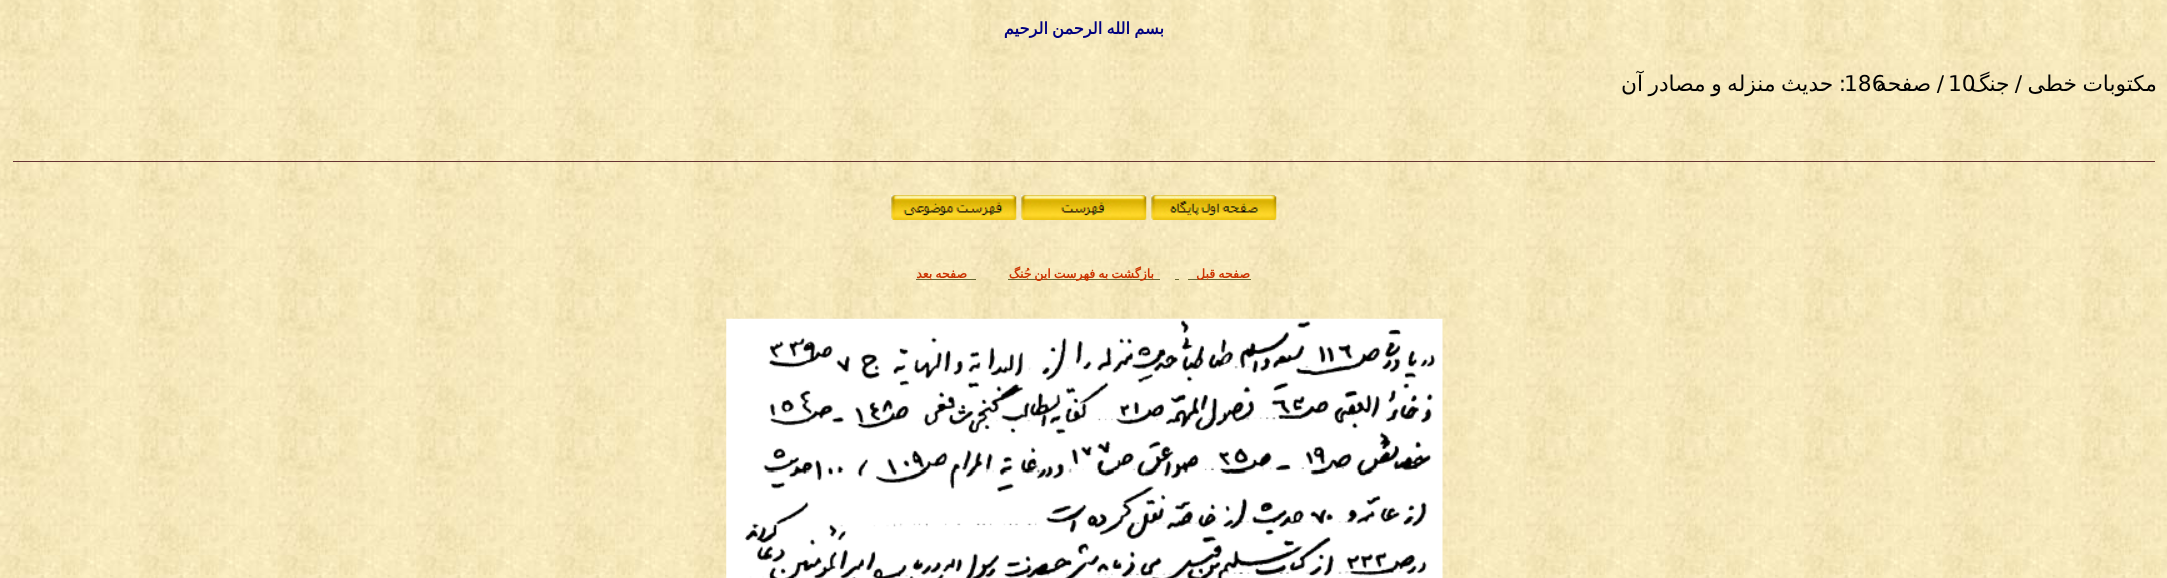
async function draw(canvas) {
  canvas.width = 2167;
  canvas.height = 578;
  const ctx = canvas.getContext('2d');
  ctx.miterLimit = 4;
  ctx.fontKerning = 'normal';
  function label(s, x, y, font, color) {
    ctx.font = font;
    ctx.fillStyle = color;
    ctx.fillText(s, x, y);
  }
  function rect(x, y, w, h, color) {
    ctx.fillStyle = color;
    ctx.fillRect(x, y, w, h);
  }
  async function image(src, x, y, w, h) {
    const img = new Image();
    img.src = src;
    await img.decode();
    ctx.drawImage(img, x, y, w, h);
  }

  rect(0, 0, 2167, 578, '#fff');
  await image('assets/img1.png', 0, 0, 2167, 578);
  rect(13, 161, 2142, 1, '#633');
  ctx.wordSpacing = '-1px';
  ctx.direction = 'rtl';
  label('بسم الله الرحمن', 1164, 34, 'bold 16.25px DejaVu Sans', '#000080');
  ctx.wordSpacing = '0px';
  label('الرحيم', 1048, 34, 'bold 16.25px DejaVu Sans', '#000080');
  ctx.direction = 'ltr';
  label('10', 1948, 91, '21.75px DejaVu Sans', '#000');
  ctx.wordSpacing = '-1.5px';
  ctx.direction = 'rtl';
  label('مکتوبات خطی / جنگ', 2157, 91, '21.75px DejaVu Sans', '#000');
  ctx.wordSpacing = '0px';
  ctx.direction = 'ltr';
  label('186', 1844, 91, '21.75px DejaVu Sans', '#000');
  ctx.wordSpacing = '-1.5px';
  ctx.direction = 'rtl';
  label('/ صفحه', 1944, 91, '21.75px DejaVu Sans', '#000');
  label(': حدیث منزله و مصادر آن', 1846, 91, '21.75px DejaVu Sans', '#000');
  await image('assets/img2.png', 1151, 195, 126, 25);
  await image('assets/img3.png', 1021, 195, 126, 25);
  await image('assets/img4.png', 891, 195, 126, 25);
  rect(1188, 279, 63, 1, '#663');
  ctx.wordSpacing = '-1px';
  label('صفحه قبل', 1250, 278, 'bold 12.5px DejaVu Sans', '#c30');
  rect(1175, 279, 4, 1, '#663');
  rect(1008, 279, 152, 1, '#663');
  label('بازگشت به فهرست این جُنگ', 1154, 278, 'bold 12.5px DejaVu Sans', '#c30');
  rect(916, 279, 60, 1, '#663');
  label('صفحه بعد', 967, 278, 'bold 12.5px DejaVu Sans', '#c30');
  await image('assets/img5.png', 726, 318, 717, 260);
}

draw(document.querySelector('canvas'));
